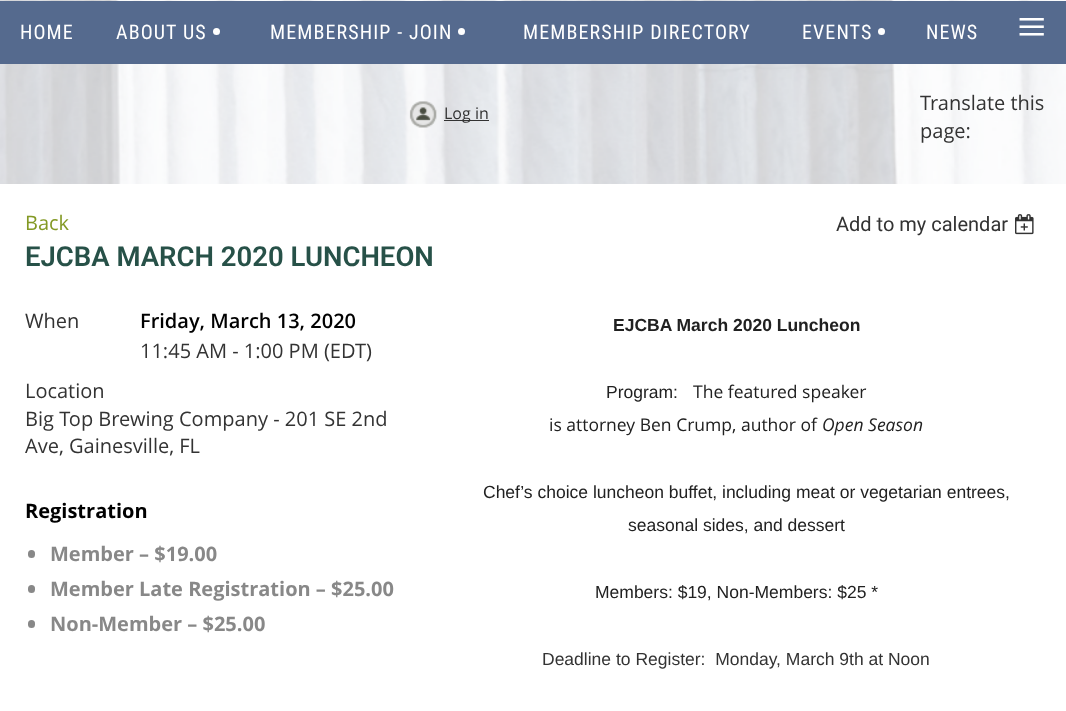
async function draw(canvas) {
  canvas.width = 1066;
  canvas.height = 711;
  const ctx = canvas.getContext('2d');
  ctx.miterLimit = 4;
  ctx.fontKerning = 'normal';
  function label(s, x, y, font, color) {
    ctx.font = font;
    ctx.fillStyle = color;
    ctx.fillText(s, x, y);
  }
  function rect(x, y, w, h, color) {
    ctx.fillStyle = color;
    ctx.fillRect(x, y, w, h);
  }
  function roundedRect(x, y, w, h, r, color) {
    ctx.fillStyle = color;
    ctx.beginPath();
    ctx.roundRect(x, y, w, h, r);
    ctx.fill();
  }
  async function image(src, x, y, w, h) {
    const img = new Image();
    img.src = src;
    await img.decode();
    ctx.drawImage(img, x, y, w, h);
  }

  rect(0, 0, 1066, 711, '#fff');
  await image('assets/img1.png', 0, 0, 1066, 184);
  rect(0, 1, 1066, 63, '#556a8e');
  ctx.letterSpacing = '1.1px';
  label('HOME', 20, 39, '20px Roboto Condensed', '#fff');
  label('ABOUT US', 116, 39, '20px Roboto Condensed', '#fff');
  ctx.beginPath();
  ctx.arc(216.5, 31.5, 3.5, 0, 2 * Math.PI);
  ctx.fill();
  label('MEMBERSHIP - JOIN', 270, 39, '20px Roboto Condensed', '#fff');
  ctx.beginPath();
  ctx.arc(461.5, 31.5, 3.5, 0, 2 * Math.PI);
  ctx.fill();
  label('MEMBERSHIP DIRECTORY', 523, 39, '20px Roboto Condensed', '#fff');
  label('EVENTS', 802, 39, '20px Roboto Condensed', '#fff');
  ctx.beginPath();
  ctx.arc(881.5, 31.5, 3.5, 0, 2 * Math.PI);
  ctx.fill();
  label('NEWS', 926, 39, '20px Roboto Condensed', '#fff');
  label('≡', 1017, 44, '52px Liberation Serif', '#fff');
  await image('assets/img2.png', 409, 101, 28, 27);
  rect(444, 120, 45, 1, '#333');
  ctx.letterSpacing = '0px';
  label('Log in', 444, 119, '16px Open Sans', '#333');
  label('Translate this', 920, 110, '20px Open Sans', '#333');
  label('page:', 920, 138, '20px Open Sans', '#333');
  label('Back', 25, 230, '20px Open Sans', '#839924');
  label('Add to my calendar', 836, 231, '20px Roboto', '#333');
  await image('assets/img3.png', 1015, 214, 19, 21);
  label('EJCBA MARCH 2020 LUNCHEON', 25, 266, '600 27.5px Roboto', '#275148');
  label('When', 25, 328, '20px Open Sans', '#333');
  label('Friday, March 13, 2020', 140, 328, '600 20px Open Sans', '#000');
  label('11:45 AM - 1:00 PM (EDT)', 140, 358, '20px Open Sans', '#333');
  label('Location', 25, 398, '20px Open Sans', '#333');
  label('Big Top Brewing Company - 201 SE 2nd', 25, 426, '20px Open Sans', '#333');
  label('Ave, Gainesville, FL', 25, 453, '20px Open Sans', '#333');
  label('Registration', 25, 518, 'bold 20px Open Sans', '#000');
  roundedRect(28, 550, 7, 8, 3.5, '#888');
  label('Member – $19.00', 50, 561, 'bold 20px Open Sans', '#888');
  roundedRect(28, 585, 7, 8, 3.5, '#888');
  label('Member Late Registration – $25.00', 50, 596, 'bold 20px Open Sans', '#888');
  roundedRect(28, 620, 7, 8, 3.5, '#888');
  label('Non-Member – $25.00', 50, 631, 'bold 20px Open Sans', '#888');
  label('EJCBA March 2020 Luncheon', 613, 331, 'bold 17.5px Liberation Sans', '#212121');
  label('Program:', 606, 398, '17.5px Liberation Sans', '#212121');
  label('The featured speaker', 693, 398, '17.5px Open Sans', '#212121');
  label('is attorney Ben Crump, author of', 549, 431, '17.5px Open Sans', '#212121');
  label('Open Season', 822, 431, 'italic 17.5px Open Sans', '#212121');
  label('Chef’s choice luncheon buffet, including meat or vegetarian entrees,', 483, 498, '17.5px Liberation Sans', '#212121');
  label('seasonal sides, and dessert', 628, 531, '17.5px Liberation Sans', '#212121');
  label('Members: $19, Non-Members: $25 *', 595, 598, '17.5px Liberation Sans', '#212121');
  label('Deadline to Register:  Monday, March 9th at Noon', 542, 665, '17.5px Liberation Sans', '#333');
}

draw(document.querySelector('canvas'));
